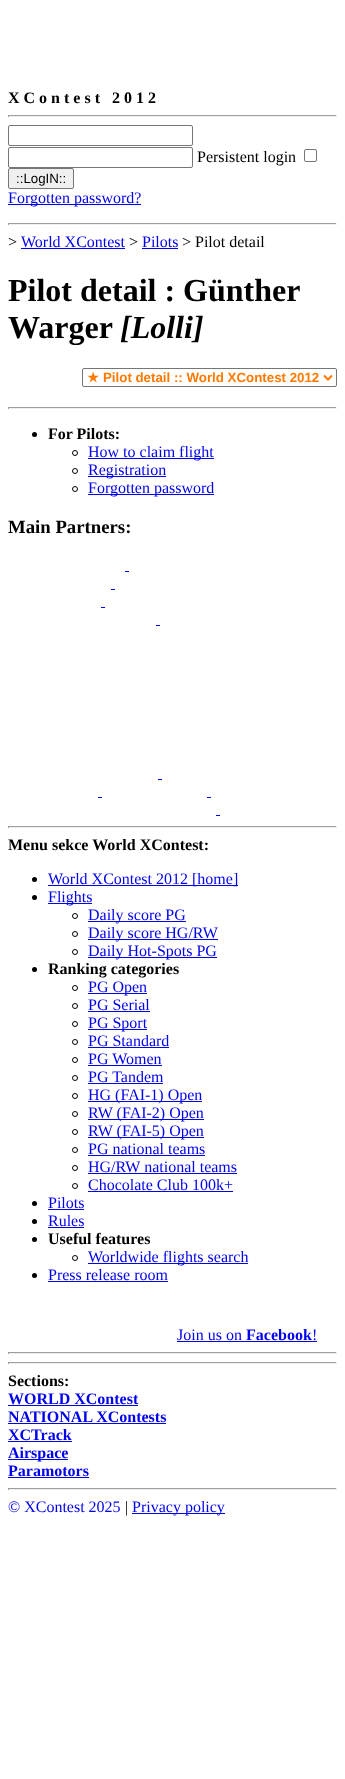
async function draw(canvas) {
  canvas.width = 345;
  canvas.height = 1779;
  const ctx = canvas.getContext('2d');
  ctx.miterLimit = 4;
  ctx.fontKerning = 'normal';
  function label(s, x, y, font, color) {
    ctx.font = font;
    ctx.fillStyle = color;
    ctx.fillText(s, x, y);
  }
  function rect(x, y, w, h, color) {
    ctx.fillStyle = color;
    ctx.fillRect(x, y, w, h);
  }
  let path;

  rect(0, 0, 345, 1779, '#fff');
  label('X C o n t e s t   2 0 1 2', 8, 103, 'bold 16px Liberation Serif', '#000');
  rect(8, 115, 329, 1, '#9f9f9f');
  rect(336, 115, 1, 2, '#eee');
  rect(8, 116, 329, 1, '#eee');
  rect(8, 115, 1, 2, '#9f9f9f');
  ctx.beginPath();
  ctx.roundRect(8.5, 125.5, 184, 20, 1.5);
  ctx.strokeStyle = '#767676';
  ctx.stroke();
  ctx.beginPath();
  ctx.roundRect(8.5, 147.5, 184, 20, 1.5);
  ctx.stroke();
  label('Persistent login', 197, 162, '16px Liberation Serif', '#000');
  ctx.beginPath();
  ctx.roundRect(304.5, 149.5, 12, 12, 1.5);
  ctx.stroke();
  ctx.fillStyle = '#efefef';
  ctx.beginPath();
  ctx.roundRect(8.5, 168.5, 65, 20, 1.5);
  ctx.fill();
  ctx.stroke();
  label('::LogIN::', 16, 183, '13.3px Liberation Sans', '#000');
  rect(8, 204, 133, 1, '#00e');
  label('Forgotten password?', 8, 203, '16px Liberation Serif', '#00e');
  rect(8, 223, 329, 1, '#9f9f9f');
  rect(336, 223, 1, 2, '#eee');
  rect(8, 224, 329, 1, '#eee');
  rect(8, 223, 1, 2, '#9f9f9f');
  label('>', 8, 247, '16px Liberation Serif', '#000');
  label('World XContest', 21, 247, '16px Liberation Serif', '#00e');
  rect(21, 248, 104, 1, '#00e');
  label('>', 129, 247, '16px Liberation Serif', '#000');
  label('Pilots', 142, 247, '16px Liberation Serif', '#00e');
  rect(142, 248, 36, 1, '#00e');
  label('> Pilot detail', 182, 247, '16px Liberation Serif', '#000');
  label('Pilot detail : Günther', 8, 301, 'bold 32px Liberation Serif', '#000');
  label('Warger', 8, 338, 'bold 32px Liberation Serif', '#000');
  label('[Lolli]', 120, 338, 'italic bold 32px Liberation Serif', '#000');
  ctx.beginPath();
  ctx.roundRect(82.5, 368.5, 254, 18, 1.5);
  ctx.stroke();
  path = new Path2D('M324 375.5L328 379.5L332 375.5');
  ctx.strokeStyle = '#ff7901';
  ctx.lineWidth = 2;
  ctx.stroke(path);
  label('★', 87, 382, 'bold 13.3px DejaVu Sans', '#ff7901');
  label('Pilot detail :: World XContest 2012', 103, 382, 'bold 13.3px Liberation Sans', '#ff7901');
  rect(8, 407, 329, 1, '#9f9f9f');
  rect(336, 407, 1, 2, '#eee');
  rect(8, 408, 329, 1, '#eee');
  rect(8, 407, 1, 2, '#9f9f9f');
  ctx.fillStyle = '#000';
  ctx.beginPath();
  ctx.arc(34.5, 434.5, 2.5, 0, 2 * Math.PI);
  ctx.fill();
  label('For Pilots:', 48, 439, 'bold 16px Liberation Serif', '#000');
  ctx.beginPath();
  ctx.arc(75, 453, 2.5, 0, 2 * Math.PI);
  ctx.strokeStyle = '#000';
  ctx.lineWidth = 1;
  ctx.stroke();
  rect(88, 458, 126, 1, '#00e');
  label('How to claim flight', 88, 457, '16px Liberation Serif', '#00e');
  ctx.beginPath();
  ctx.arc(75, 471, 2.5, 0, 2 * Math.PI);
  ctx.stroke();
  rect(88, 476, 78, 1, '#00e');
  label('Registration', 88, 475, '16px Liberation Serif', '#00e');
  ctx.beginPath();
  ctx.arc(75, 489, 2.5, 0, 2 * Math.PI);
  ctx.stroke();
  rect(88, 494, 126, 1, '#00e');
  label('Forgotten password', 88, 493, '16px Liberation Serif', '#00e');
  label('Main Partners:', 8, 533, 'bold 18.75px Liberation Serif', '#000');
  rect(125, 571, 4, 1, '#00e');
  rect(111, 589, 4, 1, '#00e');
  rect(101, 607, 4, 1, '#00e');
  rect(156, 625, 4, 1, '#00e');
  rect(158, 779, 4, 1, '#00e');
  rect(98, 797, 4, 1, '#00e');
  rect(207, 797, 4, 1, '#00e');
  rect(216, 815, 4, 1, '#00e');
  rect(8, 826, 329, 1, '#9f9f9f');
  rect(336, 826, 1, 2, '#eee');
  rect(8, 827, 329, 1, '#eee');
  rect(8, 826, 1, 2, '#9f9f9f');
  label('Menu sekce World XContest:', 8, 850, 'bold 16px Liberation Serif', '#000');
  ctx.beginPath();
  ctx.arc(34.5, 879.5, 2.5, 0, 2 * Math.PI);
  ctx.fill();
  rect(48, 885, 190, 1, '#00e');
  label('World XContest 2012 [home]', 48, 884, '16px Liberation Serif', '#00e');
  ctx.fillStyle = '#000';
  ctx.beginPath();
  ctx.arc(34.5, 897.5, 2.5, 0, 2 * Math.PI);
  ctx.fill();
  rect(48, 903, 44, 1, '#00e');
  label('Flights', 48, 902, '16px Liberation Serif', '#00e');
  ctx.beginPath();
  ctx.arc(75, 916, 2.5, 0, 2 * Math.PI);
  ctx.stroke();
  rect(88, 921, 98, 1, '#00e');
  label('Daily score PG', 88, 920, '16px Liberation Serif', '#00e');
  ctx.beginPath();
  ctx.arc(75, 934, 2.5, 0, 2 * Math.PI);
  ctx.stroke();
  rect(88, 939, 130, 1, '#00e');
  label('Daily score HG/RW', 88, 938, '16px Liberation Serif', '#00e');
  ctx.beginPath();
  ctx.arc(75, 952, 2.5, 0, 2 * Math.PI);
  ctx.stroke();
  rect(88, 957, 129, 1, '#00e');
  label('Daily Hot-Spots PG', 88, 956, '16px Liberation Serif', '#00e');
  ctx.fillStyle = '#000';
  ctx.beginPath();
  ctx.arc(34.5, 969.5, 2.5, 0, 2 * Math.PI);
  ctx.fill();
  label('Ranking categories', 48, 974, 'bold 16px Liberation Serif', '#000');
  ctx.beginPath();
  ctx.arc(75, 988, 2.5, 0, 2 * Math.PI);
  ctx.stroke();
  rect(88, 993, 59, 1, '#00e');
  label('PG Open', 88, 992, '16px Liberation Serif', '#00e');
  ctx.beginPath();
  ctx.arc(75, 1006, 2.5, 0, 2 * Math.PI);
  ctx.stroke();
  label('PG Serial', 88, 1010, '16px Liberation Serif', '#00e');
  rect(88, 1011, 62, 1, '#00e');
  ctx.beginPath();
  ctx.arc(75, 1024, 2.5, 0, 2 * Math.PI);
  ctx.stroke();
  rect(88, 1029, 59, 1, '#00e');
  label('PG Sport', 88, 1028, '16px Liberation Serif', '#00e');
  ctx.beginPath();
  ctx.arc(75, 1042, 2.5, 0, 2 * Math.PI);
  ctx.stroke();
  label('PG Standard', 88, 1046, '16px Liberation Serif', '#00e');
  rect(88, 1047, 81, 1, '#00e');
  ctx.beginPath();
  ctx.arc(75, 1060, 2.5, 0, 2 * Math.PI);
  ctx.stroke();
  label('PG Women', 88, 1064, '16px Liberation Serif', '#00e');
  rect(88, 1065, 74, 1, '#00e');
  ctx.beginPath();
  ctx.arc(75, 1078, 2.5, 0, 2 * Math.PI);
  ctx.stroke();
  label('PG Tandem', 88, 1082, '16px Liberation Serif', '#00e');
  rect(88, 1083, 75, 1, '#00e');
  ctx.beginPath();
  ctx.arc(75, 1096, 2.5, 0, 2 * Math.PI);
  ctx.stroke();
  rect(88, 1101, 114, 1, '#00e');
  label('HG (FAI-1) Open', 88, 1100, '16px Liberation Serif', '#00e');
  ctx.beginPath();
  ctx.arc(75, 1114, 2.5, 0, 2 * Math.PI);
  ctx.stroke();
  rect(88, 1119, 116, 1, '#00e');
  label('RW (FAI-2) Open', 88, 1118, '16px Liberation Serif', '#00e');
  ctx.beginPath();
  ctx.arc(75, 1132, 2.5, 0, 2 * Math.PI);
  ctx.stroke();
  rect(88, 1137, 116, 1, '#00e');
  label('RW (FAI-5) Open', 88, 1136, '16px Liberation Serif', '#00e');
  ctx.beginPath();
  ctx.arc(75, 1150, 2.5, 0, 2 * Math.PI);
  ctx.stroke();
  label('PG national teams', 88, 1154, '16px Liberation Serif', '#00e');
  rect(88, 1155, 117, 1, '#00e');
  ctx.beginPath();
  ctx.arc(75, 1168, 2.5, 0, 2 * Math.PI);
  ctx.stroke();
  label('HG/RW national teams', 88, 1172, '16px Liberation Serif', '#00e');
  rect(88, 1173, 149, 1, '#00e');
  ctx.beginPath();
  ctx.arc(75, 1186, 2.5, 0, 2 * Math.PI);
  ctx.stroke();
  label('Chocolate Club 100k+', 88, 1190, '16px Liberation Serif', '#00e');
  rect(88, 1191, 145, 1, '#00e');
  ctx.fillStyle = '#000';
  ctx.beginPath();
  ctx.arc(34.5, 1203.5, 2.5, 0, 2 * Math.PI);
  ctx.fill();
  label('Pilots', 48, 1208, '16px Liberation Serif', '#00e');
  rect(48, 1209, 36, 1, '#00e');
  ctx.fillStyle = '#000';
  ctx.beginPath();
  ctx.arc(34.5, 1221.5, 2.5, 0, 2 * Math.PI);
  ctx.fill();
  label('Rules', 48, 1226, '16px Liberation Serif', '#00e');
  rect(48, 1227, 36, 1, '#00e');
  ctx.fillStyle = '#000';
  ctx.beginPath();
  ctx.arc(34.5, 1239.5, 2.5, 0, 2 * Math.PI);
  ctx.fill();
  label('Useful features', 48, 1244, 'bold 16px Liberation Serif', '#000');
  ctx.beginPath();
  ctx.arc(75, 1258, 2.5, 0, 2 * Math.PI);
  ctx.stroke();
  rect(88, 1263, 160, 1, '#00e');
  label('Worldwide flights search', 88, 1262, '16px Liberation Serif', '#00e');
  ctx.fillStyle = '#000';
  ctx.beginPath();
  ctx.arc(34.5, 1275.5, 2.5, 0, 2 * Math.PI);
  ctx.fill();
  label('Press release room', 48, 1280, '16px Liberation Serif', '#00e');
  rect(48, 1281, 120, 1, '#00e');
  label('Join us on', 177, 1340, '16px Liberation Serif', '#00e');
  rect(177, 1341, 140, 1, '#00e');
  label('Facebook', 246, 1340, 'bold 16px Liberation Serif', '#00e');
  label('!', 312, 1340, '16px Liberation Serif', '#00e');
  rect(8, 1352, 329, 1, '#9f9f9f');
  rect(336, 1352, 1, 2, '#eee');
  rect(8, 1353, 329, 1, '#eee');
  rect(8, 1352, 1, 2, '#9f9f9f');
  rect(8, 1362, 329, 1, '#9f9f9f');
  rect(336, 1362, 1, 2, '#eee');
  rect(8, 1363, 329, 1, '#eee');
  rect(8, 1362, 1, 2, '#9f9f9f');
  label('Sections:', 8, 1386, 'bold 16px Liberation Serif', '#000');
  label('WORLD XContest', 8, 1404, 'bold 16px Liberation Serif', '#00e');
  rect(8, 1405, 130, 1, '#00e');
  label('NATIONAL XContests', 8, 1422, 'bold 16px Liberation Serif', '#00e');
  rect(8, 1423, 158, 1, '#00e');
  label('XCTrack', 8, 1440, 'bold 16px Liberation Serif', '#00e');
  rect(8, 1441, 64, 1, '#00e');
  rect(8, 1459, 60, 1, '#00e');
  label('Airspace', 8, 1458, 'bold 16px Liberation Serif', '#00e');
  label('Paramotors', 8, 1476, 'bold 16px Liberation Serif', '#00e');
  rect(8, 1477, 81, 1, '#00e');
  rect(8, 1488, 329, 1, '#9f9f9f');
  rect(336, 1488, 1, 2, '#eee');
  rect(8, 1489, 329, 1, '#eee');
  rect(8, 1488, 1, 2, '#9f9f9f');
  label('© XContest 2025', 8, 1512, '16px Liberation Serif', '#00e');
  label('|', 125, 1512, '16px Liberation Serif', '#000');
  rect(132, 1513, 93, 1, '#00e');
  label('Privacy policy', 132, 1512, '16px Liberation Serif', '#00e');
}

draw(document.querySelector('canvas'));
